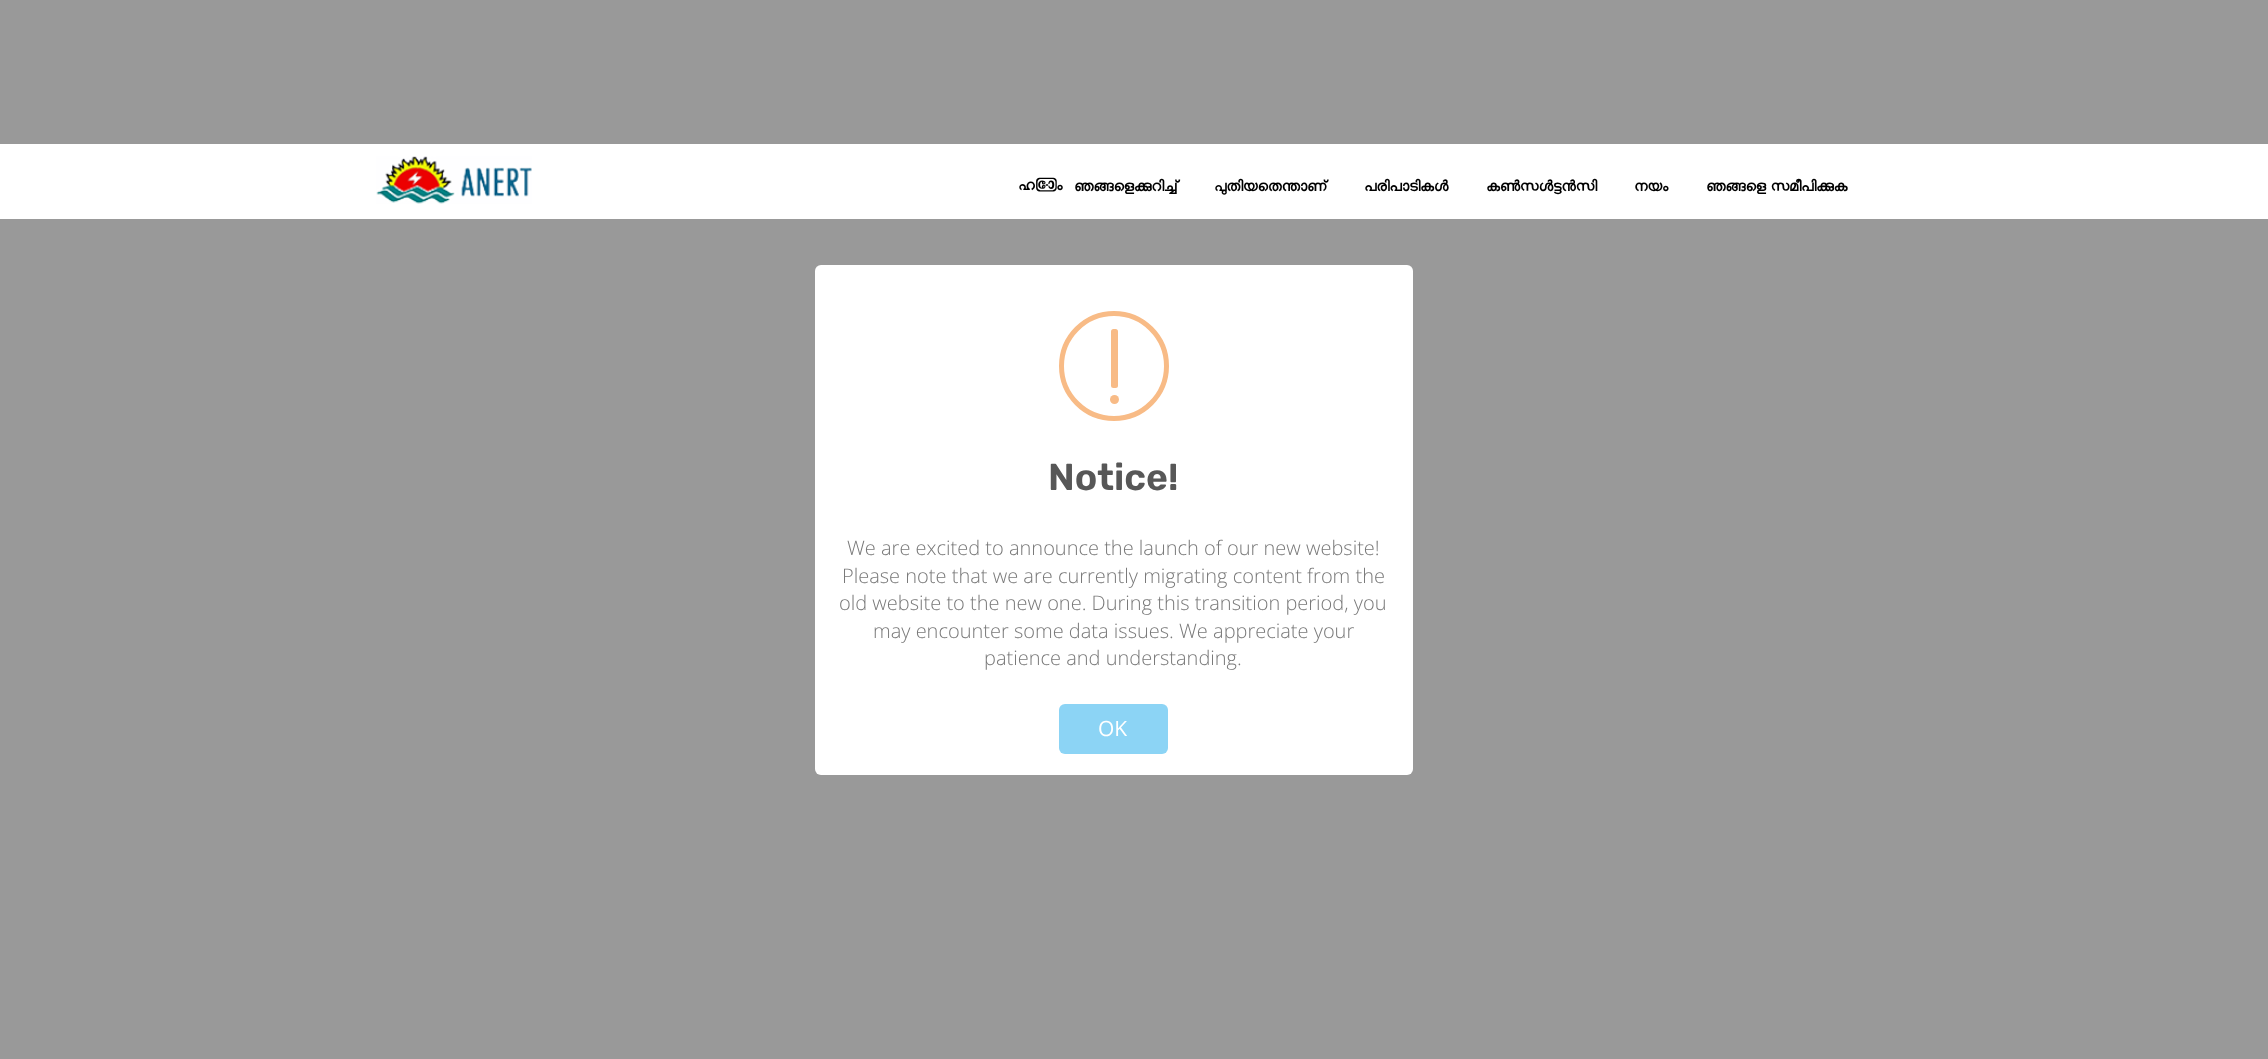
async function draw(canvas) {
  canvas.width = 2268;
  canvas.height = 1059;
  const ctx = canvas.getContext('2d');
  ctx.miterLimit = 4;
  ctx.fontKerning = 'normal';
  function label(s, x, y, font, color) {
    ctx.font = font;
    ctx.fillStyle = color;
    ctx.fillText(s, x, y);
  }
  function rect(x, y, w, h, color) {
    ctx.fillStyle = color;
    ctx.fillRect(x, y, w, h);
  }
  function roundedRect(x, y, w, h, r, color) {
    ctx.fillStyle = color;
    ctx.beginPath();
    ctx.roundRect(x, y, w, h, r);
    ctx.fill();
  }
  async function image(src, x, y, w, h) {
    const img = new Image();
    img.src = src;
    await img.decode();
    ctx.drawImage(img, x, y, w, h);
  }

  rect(0, 0, 2268, 1059, '#999');
  rect(0, 144, 2268, 75, '#fff');
  await image('assets/img1.png', 376, 156, 156, 48);
  label('ഹോം', 1018, 190, 'bold 17.5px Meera', '#000');
  label('ഞങ്ങളെക്കുറിച്ച്', 1074, 191, 'bold 17.5px Meera', '#000');
  label('പുതിയതെന്താണ്', 1214, 191, 'bold 17.5px Meera', '#000');
  label('പരിപാടികൾ', 1364, 191, 'bold 17.5px Meera', '#000');
  label('കൺസൾട്ടൻസി', 1486, 191, 'bold 17.5px Meera', '#000');
  label('നയം', 1634, 191, 'bold 17.5px Meera', '#000');
  label('ഞങ്ങളെ സമീപിക്കുക', 1706, 191, 'bold 17.5px Meera', '#000');
  roundedRect(815, 265, 598, 510, 6, '#fff');
  ctx.beginPath();
  ctx.arc(1114, 366, 52.5, 0, 2 * Math.PI);
  ctx.strokeStyle = '#f8bb86';
  ctx.lineWidth = 5;
  ctx.stroke();
  roundedRect(1111, 329, 7, 59, 2.5, '#f8bb86');
  ctx.beginPath();
  ctx.arc(1114.5, 399.5, 4.5, 0, 2 * Math.PI);
  ctx.fill();
  label('Notice!', 1048, 490, '600 37.5px Rubik', '#575757');
  label('We are excited to announce the launch of our new website!', 847, 555, '300 20px Open Sans', '#797979');
  label('Please note that we are currently migrating content from the', 842, 583, '300 20px Open Sans', '#797979');
  label('old website to the new one. During this transition period, you', 839, 610, '300 20px Open Sans', '#797979');
  label('may encounter some data issues. We appreciate your', 873, 638, '300 20px Open Sans', '#797979');
  label('patience and understanding.', 984, 665, '300 20px Open Sans', '#797979');
  roundedRect(1059, 704, 109, 50, 6, '#8cd4f5');
  label('OK', 1098, 736, '21px Open Sans', '#fff');
}

draw(document.querySelector('canvas'));
